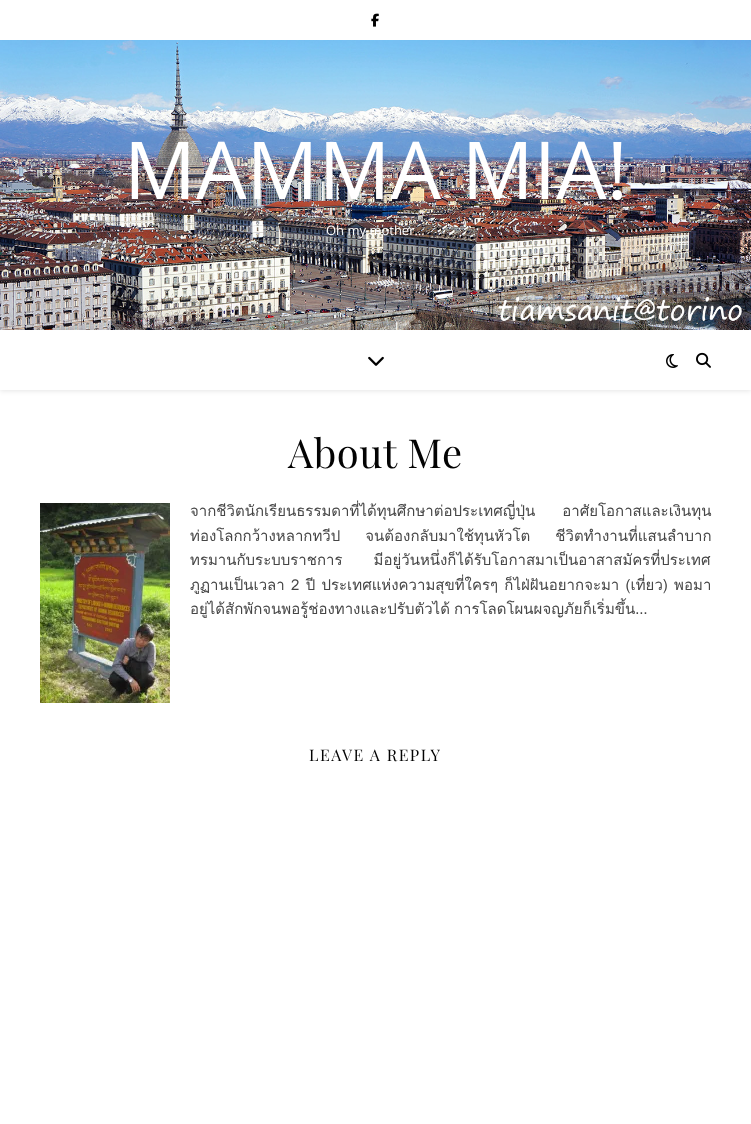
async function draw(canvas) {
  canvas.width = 751;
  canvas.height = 1124;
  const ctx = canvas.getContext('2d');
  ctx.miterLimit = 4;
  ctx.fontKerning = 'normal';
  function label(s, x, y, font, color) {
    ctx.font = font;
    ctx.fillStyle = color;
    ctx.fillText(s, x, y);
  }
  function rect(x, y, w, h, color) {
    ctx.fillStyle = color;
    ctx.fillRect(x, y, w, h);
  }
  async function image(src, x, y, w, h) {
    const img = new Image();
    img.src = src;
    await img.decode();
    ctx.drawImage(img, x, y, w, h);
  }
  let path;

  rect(0, 0, 751, 1124, '#fff');
  await image('assets/img1.png', 371, 13, 8, 14);
  await image('assets/img2.png', 0, 40, 751, 290);
  label('MAMMA MIA!', 124, 199, '80px Open Sans', '#fff');
  label('Oh my mother…', 326, 235, '13px Open Sans', '#fff');
  ctx.save();
  path = new Path2D('M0 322H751V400H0ZM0 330H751V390H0Z');
  ctx.clip(path, 'evenodd');
  ctx.fillStyle = '#0000001a';
  ctx.filter = 'blur(2.5px)';
  ctx.beginPath();
  ctx.rect(0, 331, 751, 60);
  ctx.fill();
  ctx.filter = 'none';
  ctx.restore();
  await image('assets/img3.png', 368, 356, 16, 10);
  await image('assets/img4.png', 666, 354, 12, 14);
  await image('assets/img5.png', 696, 352, 15, 16);
  ctx.letterSpacing = '0.5px';
  label('About Me', 288, 468, '40px Playfair Display', '#030303');
  await image('assets/img6.png', 40, 503, 130, 200);
  ctx.letterSpacing = '0px';
  ctx.wordSpacing = '22px';
  label('จากชีวิตนักเรียนธรรมดาที่ได้ทุนศึกษาต่อประเทศญี่ปุ่น อาศัยโอกาสและเงินทุน', 190, 516, '15px Loma', '#464646');
  ctx.wordSpacing = '20px';
  label('ท่องโลกกว้างหลากทวีป จนต้องกลับมาใช้ทุนหัวโต ชีวิตทำงานที่แสนลำบาก', 190, 541, '15px Loma', '#464646');
  ctx.wordSpacing = '26px';
  label('ทรมานกับระบบราชการ มีอยู่วันหนึ่งก็ได้รับโอกาสมาเป็นอาสาสมัครที่ประเทศ', 190, 565, '15px Loma', '#464646');
  ctx.wordSpacing = '1.25px';
  label('ภูฏานเป็นเวลา 2 ปี ประเทศแห่งความสุขที่ใครๆ ก็ไฝ่ฝันอยากจะมา (เที่ยว) พอมา', 190, 590, '15px Loma', '#464646');
  ctx.wordSpacing = '-1px';
  label('อยู่ได้สักพักจนพอรู้ช่องทางและปรับตัวได้ การโลดโผนผจญภัยก็เริ่มขึ้น…', 190, 614, '15px Loma', '#464646');
  ctx.letterSpacing = '1.5px';
  ctx.wordSpacing = '0px';
  label('LEAVE A REPLY', 309, 761, '16px Playfair Display', '#030303');
}

draw(document.querySelector('canvas'));
